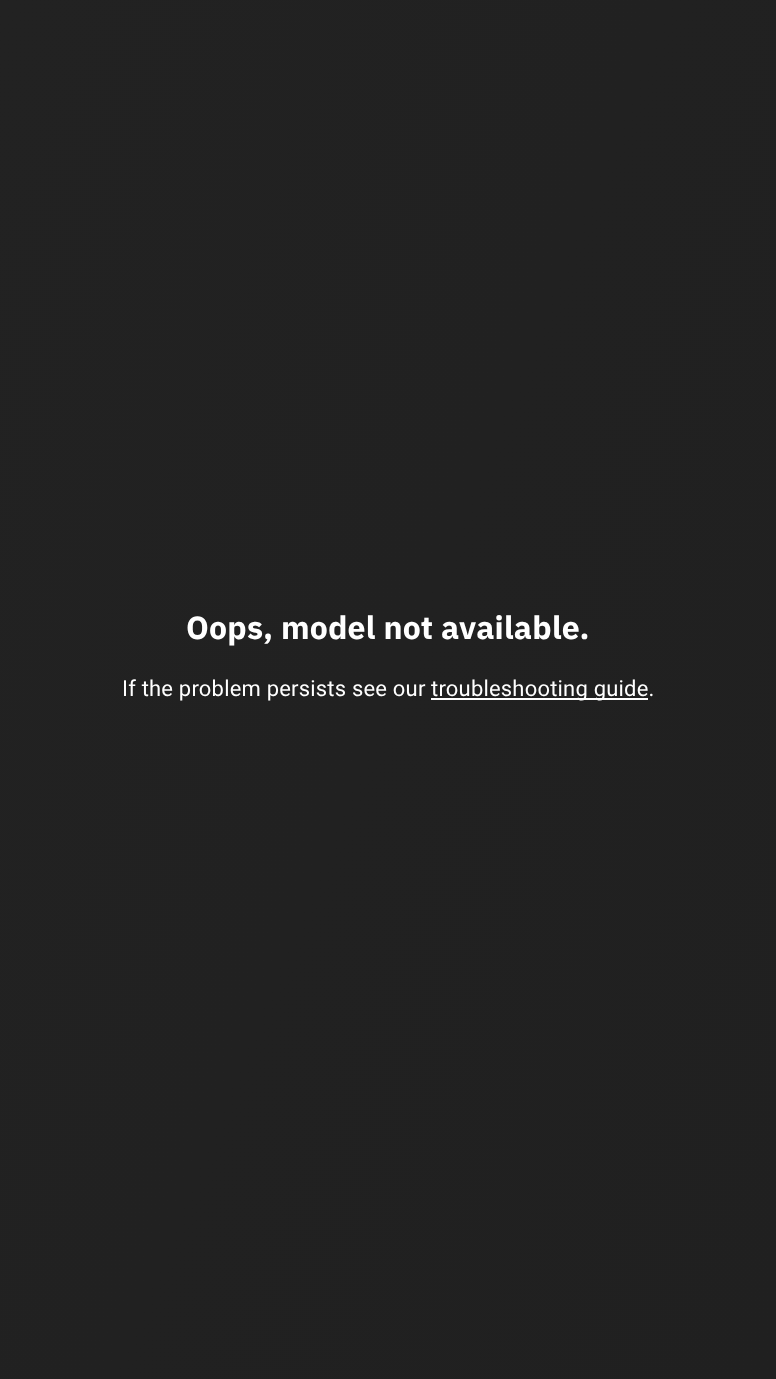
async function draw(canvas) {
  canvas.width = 776;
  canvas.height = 1379;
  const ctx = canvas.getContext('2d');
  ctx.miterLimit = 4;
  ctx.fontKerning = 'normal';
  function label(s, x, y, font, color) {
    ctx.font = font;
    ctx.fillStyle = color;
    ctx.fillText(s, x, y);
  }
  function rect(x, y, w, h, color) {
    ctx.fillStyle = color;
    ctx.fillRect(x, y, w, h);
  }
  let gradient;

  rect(0, 0, 776, 1379, '#fff');
  gradient = ctx.createLinearGradient(-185, 458, 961, 921);
  gradient.addColorStop(0, '#222');
  gradient.addColorStop(1, '#202020');
  ctx.fillStyle = gradient;
  ctx.fillRect(0, 0, 776, 1379);
  ctx.letterSpacing = '0.2px';
  label('Oops, model not available.', 186, 639, 'bold 32px IBM Plex Sans', '#fff');
  label('If the problem persists see our', 122, 696, '22px Roboto', '#fff');
  rect(431, 698, 217, 2, '#fff');
  label('troubleshooting guide.', 431, 696, '22px Roboto', '#fff');
}

draw(document.querySelector('canvas'));
